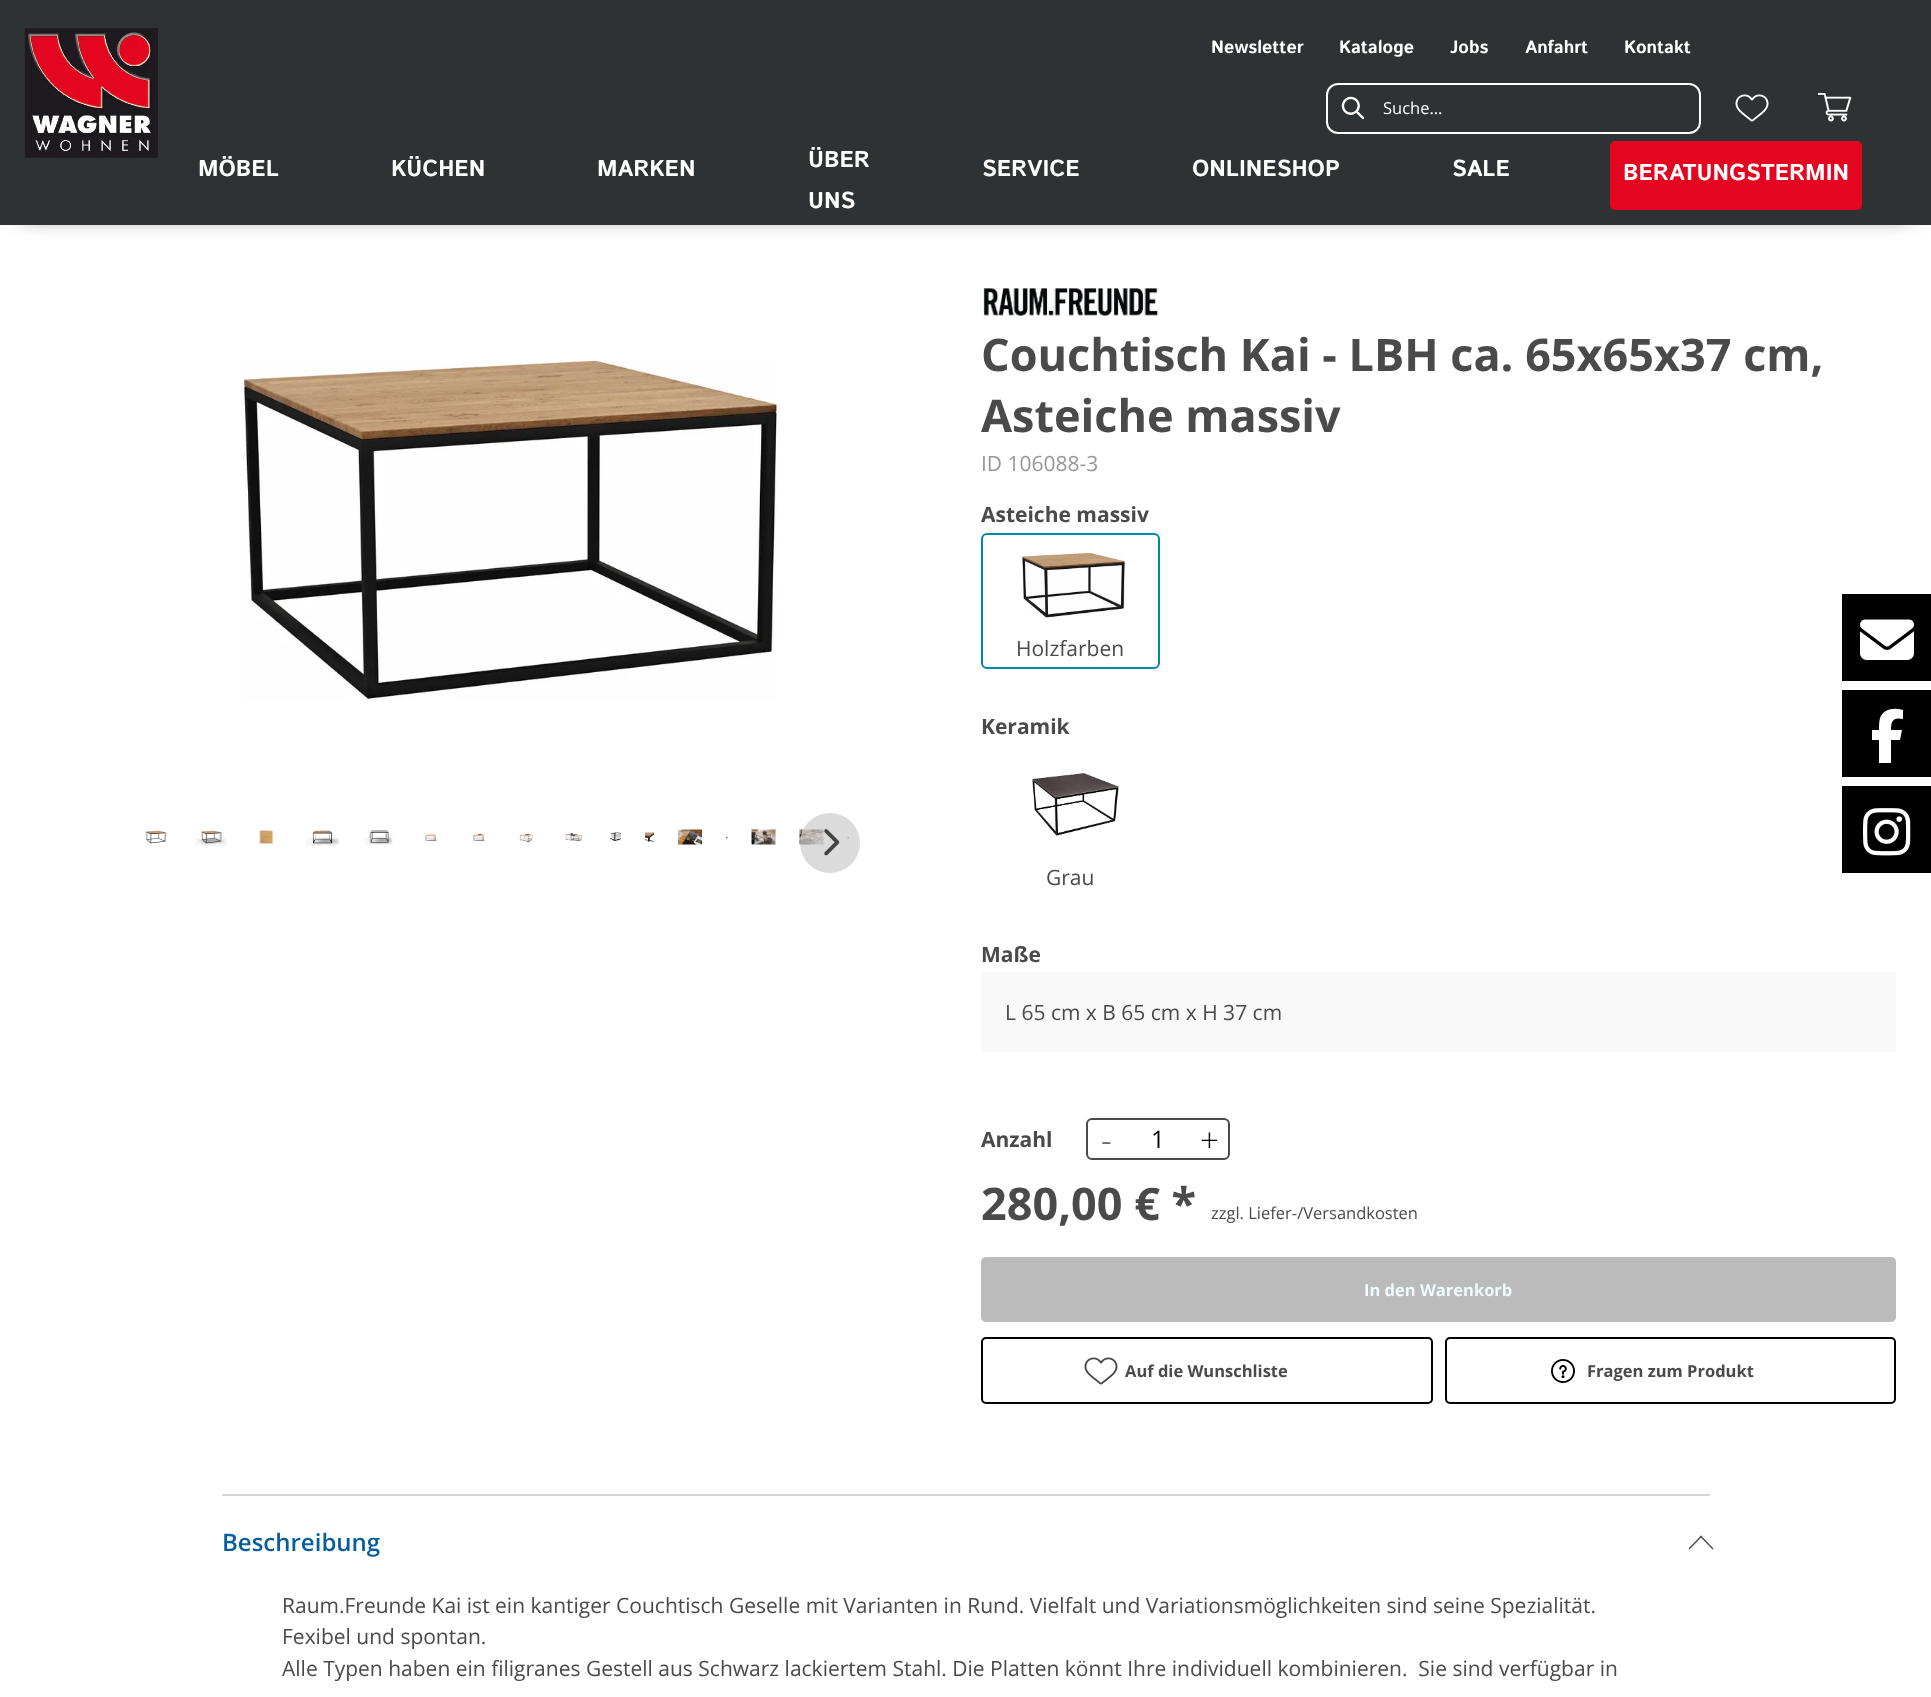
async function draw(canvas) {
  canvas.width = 1931;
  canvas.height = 1697;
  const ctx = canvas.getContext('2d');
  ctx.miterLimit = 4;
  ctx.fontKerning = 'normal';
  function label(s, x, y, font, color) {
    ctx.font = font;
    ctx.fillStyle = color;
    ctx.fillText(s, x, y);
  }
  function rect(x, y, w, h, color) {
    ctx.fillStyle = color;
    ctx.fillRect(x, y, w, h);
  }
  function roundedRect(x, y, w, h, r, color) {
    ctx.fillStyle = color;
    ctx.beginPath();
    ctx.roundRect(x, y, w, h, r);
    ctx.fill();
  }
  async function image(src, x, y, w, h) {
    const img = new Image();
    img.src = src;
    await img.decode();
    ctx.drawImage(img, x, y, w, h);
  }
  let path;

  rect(0, 0, 1931, 1697, '#fff');
  ctx.fillStyle = '#4a4a4a';
  ctx.filter = 'blur(10.5px)';
  ctx.beginPath();
  ctx.rect(21, 32, 1890, 183);
  ctx.fill();
  ctx.filter = 'none';
  rect(0, 0, 1931, 225, '#2f3234');
  await image('assets/img1.png', 24, 28, 134, 130);
  label('Newsletter', 1211, 53, 'bold 18px Istok Web', '#fff');
  label('Kataloge', 1339, 53, 'bold 18px Istok Web', '#fff');
  label('Jobs', 1450, 53, 'bold 18px Istok Web', '#fff');
  label('Anfahrt', 1525, 53, 'bold 18px Istok Web', '#fff');
  label('Kontakt', 1624, 53, 'bold 18px Istok Web', '#fff');
  ctx.beginPath();
  ctx.roundRect(1327, 84, 373, 49, 11);
  ctx.strokeStyle = '#fff';
  ctx.lineWidth = 2;
  ctx.stroke();
  await image('assets/img2.png', 1341, 96, 24, 24);
  label('Suche...', 1383, 114, '16.5px Open Sans', '#fff');
  await image('assets/img3.png', 1735, 94, 34, 28);
  await image('assets/img4.png', 1817, 93, 35, 29);
  label('MÖBEL', 198, 176, 'bold 23px Istok Web', '#fff');
  label('KÜCHEN', 391, 176, 'bold 23px Istok Web', '#fff');
  label('MARKEN', 597, 176, 'bold 23px Istok Web', '#fff');
  label('ÜBER', 808, 167, 'bold 23px Istok Web', '#fff');
  label('UNS', 808, 208, 'bold 23px Istok Web', '#fff');
  label('SERVICE', 982, 176, 'bold 23px Istok Web', '#fff');
  label('ONLINESHOP', 1192, 176, 'bold 23px Istok Web', '#fff');
  label('SALE', 1452, 176, 'bold 23px Istok Web', '#fff');
  roundedRect(1610, 141, 252, 69, 5, '#e40520');
  label('BERATUNGSTERMIN', 1623, 180, 'bold 23px Istok Web', '#fff');
  rect(1842, 594, 89, 87, '#000');
  await image('assets/img5.png', 1860, 619, 54, 41);
  rect(1842, 690, 89, 87, '#000');
  ctx.fillStyle = '#fff';
  path = new Path2D('M1879 740V763V740V763H1891V740H1900L1902 730H1891C1891 721 1893 717 1903 719V710C1894 707 1883 709 1880 718C1879 722 1879 726 1879 730H1872V740Z');
  ctx.fill(path);
  rect(1842, 786, 89, 87, '#000');
  await image('assets/img6.png', 1863, 808, 48, 48);
  await image('assets/img7.png', 241, 360, 537, 341);
  await image('assets/img23.png', 799, 829, 25, 16);
  await image('assets/img24.png', 847, 837, 2, 2);
  ctx.fillStyle = '#ccccccb3';
  ctx.beginPath();
  ctx.arc(830, 843, 30, 0, 2 * Math.PI);
  ctx.fill();
  await image('assets/img8.png', 824, 829, 16, 27);
  await image('assets/img9.png', 145, 830, 22, 14);
  await image('assets/img10.png', 195, 830, 32, 16);
  await image('assets/img11.png', 259, 830, 15, 14);
  await image('assets/img12.png', 306, 830, 33, 16);
  await image('assets/img13.png', 364, 830, 29, 15);
  await image('assets/img14.png', 425, 833, 13, 9);
  await image('assets/img15.png', 473, 833, 13, 9);
  await image('assets/img16.png', 519, 833, 14, 10);
  await image('assets/img17.png', 565, 833, 18, 9);
  await image('assets/img18.png', 610, 832, 11, 10);
  await image('assets/img19.png', 645, 832, 9, 10);
  await image('assets/img20.png', 678, 829, 24, 16);
  await image('assets/img21.png', 726, 837, 2, 2);
  await image('assets/img22.png', 751, 829, 25, 16);
  await image('assets/img25.png', 983, 288, 176, 28);
  label('Couchtisch Kai - LBH ca. 65x65x37 cm,', 981, 371, 'bold 45px Open Sans', '#4a4a4a');
  label('Asteiche massiv', 981, 432, 'bold 45px Open Sans', '#4a4a4a');
  label('ID 106088-3', 981, 471, '21px Open Sans', '#979797');
  label('Asteiche massiv', 981, 522, 'bold 21px Open Sans', '#4a4a4a');
  ctx.beginPath();
  ctx.roundRect(982, 534, 177, 134, 5);
  ctx.strokeStyle = '#0087a9';
  ctx.stroke();
  await image('assets/img26.png', 1022, 552, 103, 66);
  label('Holzfarben', 1016, 656, '21px Open Sans', '#4a4a4a');
  label('Keramik', 981, 734, 'bold 21px Open Sans', '#4a4a4a');
  await image('assets/img27.png', 1031, 772, 88, 64);
  label('Grau', 1046, 885, '21px Open Sans', '#4a4a4a');
  label('Maße', 981, 962, 'bold 21px Open Sans', '#4a4a4a');
  rect(981, 972, 915, 80, '#f9f9f9');
  label('L 65 cm x B 65 cm x H 37 cm', 1005, 1020, '21px Open Sans', '#4a4a4a');
  label('Anzahl', 981, 1147, 'bold 21px Open Sans', '#4a4a4a');
  ctx.beginPath();
  ctx.roundRect(1087, 1119, 142, 40, 5);
  ctx.strokeStyle = '#4a4a4a';
  ctx.stroke();
  label('-', 1101, 1152, '300 33px Open Sans', '#4a4a4a');
  label('1', 1151, 1148, '24px Open Sans', '#000');
  label('+', 1200, 1152, '300 33px Open Sans', '#000');
  label('280,00 € *', 981, 1220, 'bold 45px Open Sans', '#4a4a4a');
  label('zzgl. Liefer-/Versandkosten', 1211, 1219, '16.5px Open Sans', '#4a4a4a');
  roundedRect(981, 1257, 915, 65, 5, '#bbb');
  label('In den Warenkorb', 1364, 1296, 'bold 16.5px Open Sans', '#effbff');
  ctx.beginPath();
  ctx.roundRect(982, 1338, 450, 65, 4);
  ctx.strokeStyle = '#000';
  ctx.stroke();
  await image('assets/img28.png', 1084, 1357, 34, 28);
  label('Auf die Wunschliste', 1125, 1377, 'bold 16.5px Open Sans', '#4a4a4a');
  ctx.beginPath();
  ctx.roundRect(1446, 1338, 449, 65, 4);
  ctx.stroke();
  await image('assets/img29.png', 1551, 1359, 24, 24);
  label('Fragen zum Produkt', 1587, 1377, 'bold 16.5px Open Sans', '#4a4a4a');
  rect(222, 1494, 1488, 2, '#d3d6db');
  label('Beschreibung', 222, 1551, '600 24px Open Sans', '#055f9f');
  ctx.fillStyle = '#4a4a4a';
  path = new Path2D('M1702 1536.5L1689.5 1549.5L1688.5 1548.5L1701 1535.5Z');
  ctx.fill(path);
  path = new Path2D('M1713.5 1548.5L1712.5 1549.5L1700 1536.5L1701 1535.5Z');
  ctx.fill(path);
  label('Raum.Freunde Kai ist ein kantiger Couchtisch Geselle mit Varianten in Rund. Vielfalt und Variationsmöglichkeiten sind seine Spezialität.', 282, 1613, '21px Open Sans', '#4a4a4a');
  label('Fexibel und spontan.', 282, 1644, '21px Open Sans', '#4a4a4a');
  label('Alle Typen haben ein filigranes Gestell aus Schwarz lackiertem Stahl. Die Platten könnt Ihre individuell kombinieren.  Sie sind verfügbar in', 282, 1676, '21px Open Sans', '#4a4a4a');
}

draw(document.querySelector('canvas'));
